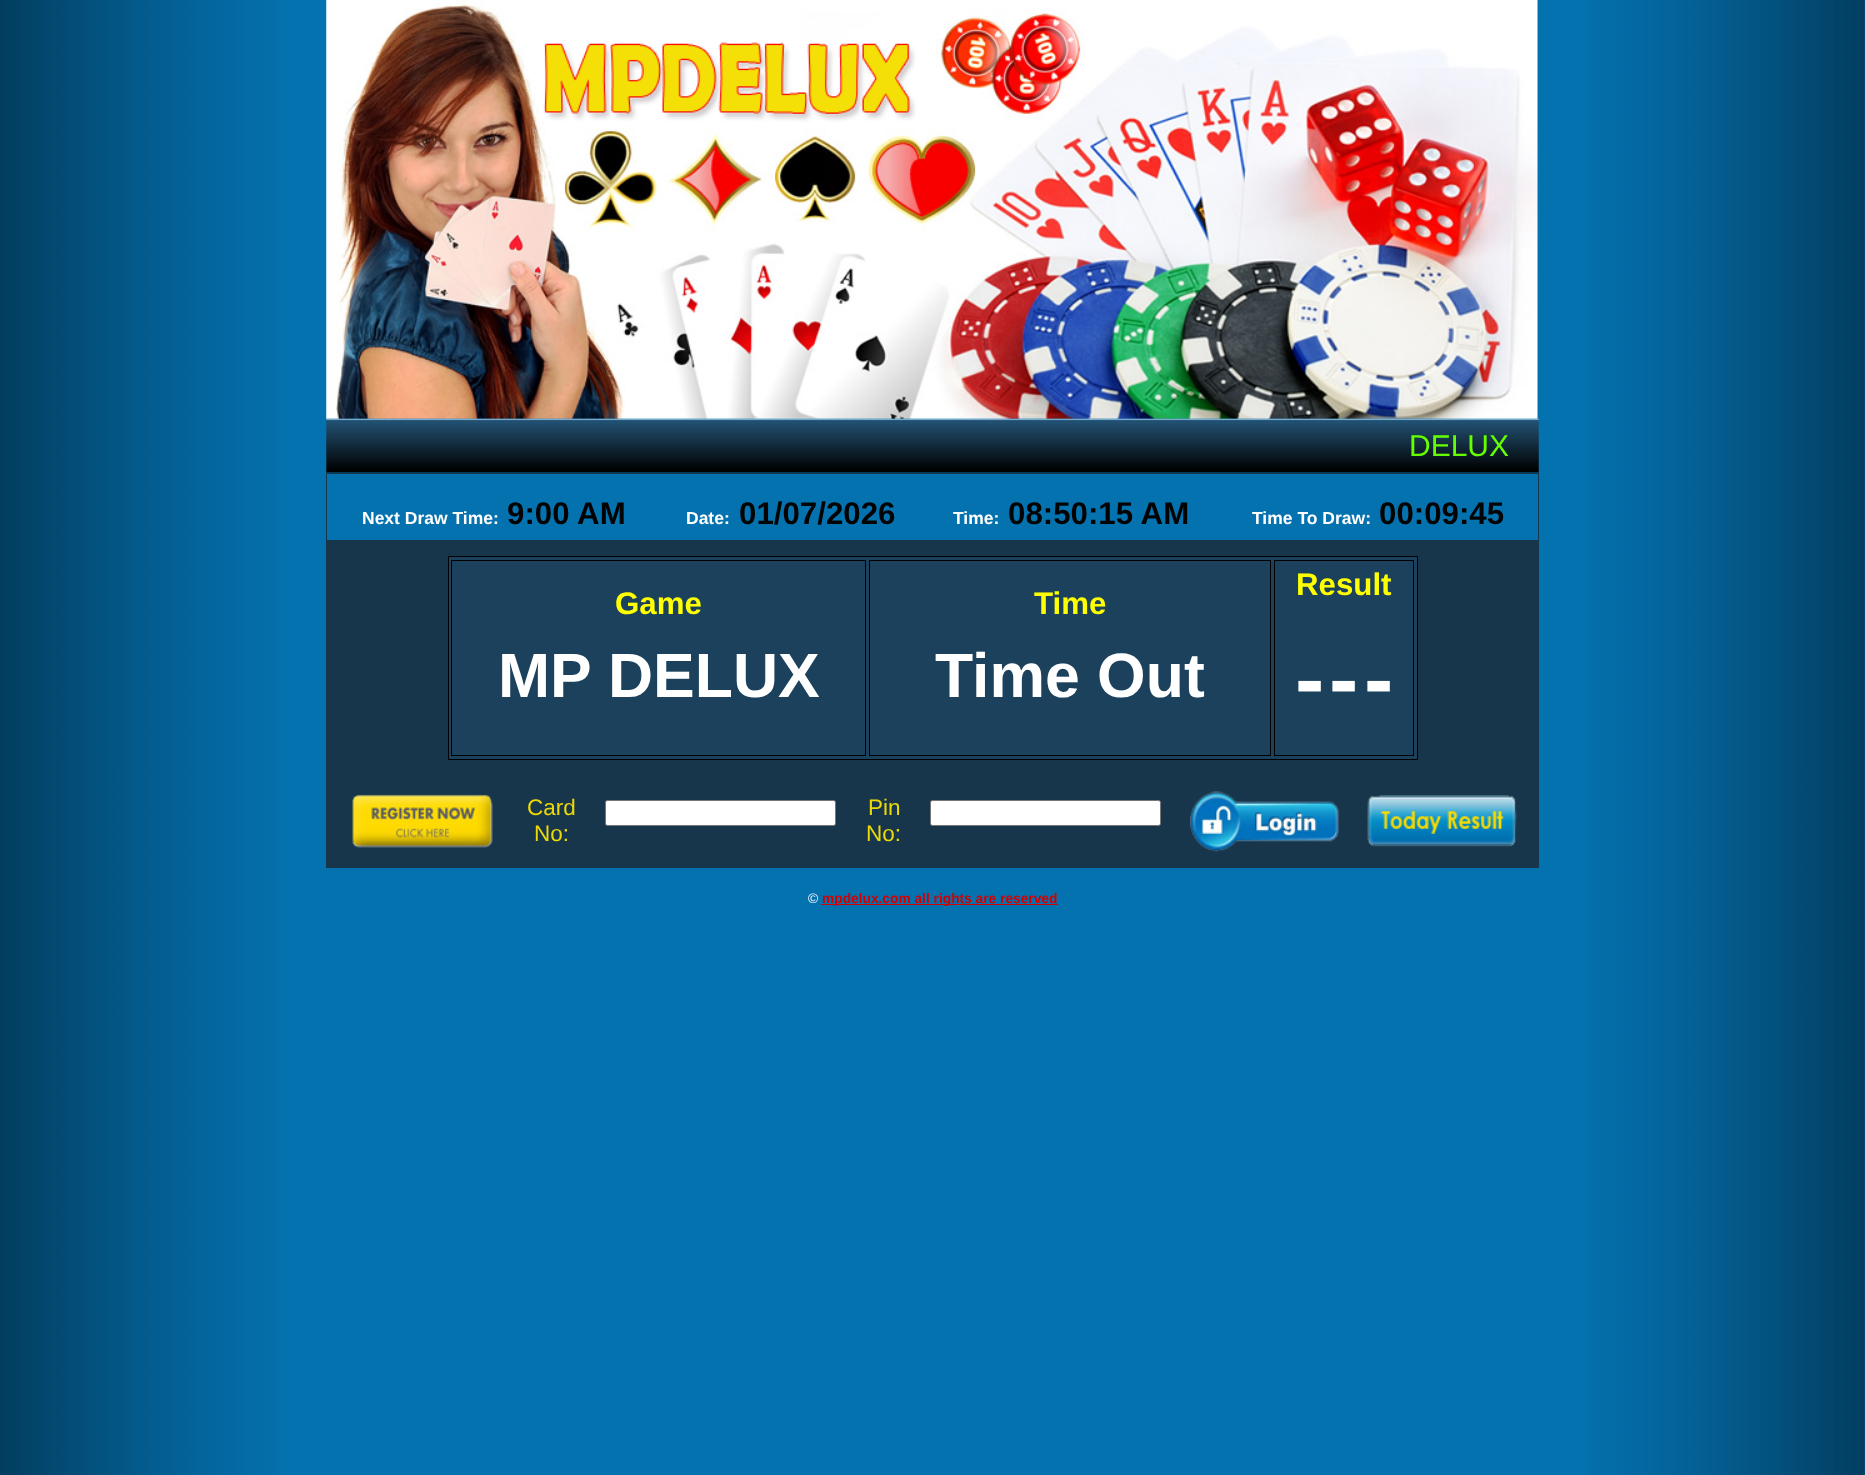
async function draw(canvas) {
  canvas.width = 1865;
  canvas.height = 1475;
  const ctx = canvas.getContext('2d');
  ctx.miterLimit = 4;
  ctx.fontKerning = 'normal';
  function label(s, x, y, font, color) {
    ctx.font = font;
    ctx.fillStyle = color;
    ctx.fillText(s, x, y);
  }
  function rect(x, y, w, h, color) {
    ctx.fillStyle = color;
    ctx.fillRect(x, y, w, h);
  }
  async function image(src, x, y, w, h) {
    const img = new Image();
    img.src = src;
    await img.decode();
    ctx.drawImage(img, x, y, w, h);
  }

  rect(0, 0, 1865, 1475, '#0572b0');
  await image('assets/img1.png', 0, 0, 279, 1475);
  await image('assets/img2.png', 326, 0, 1212, 419);
  await image('assets/img3.png', 326, 418, 1213, 55);
  label('DELUX', 1409, 456, '30px Liberation Sans', '#6f0');
  ctx.strokeStyle = '#17364c';
  ctx.strokeRect(326.5, 473.5, 1212, 67);
  label('Next Draw Time:', 362, 524, 'bold 17.5px Liberation Sans', '#fff');
  label('9:00 AM', 507, 524, 'bold 31.25px Liberation Sans', '#030303');
  label('Date:', 686, 524, 'bold 17.5px Liberation Sans', '#fff');
  label('01/07/2026', 739, 524, 'bold 31.25px Liberation Sans', '#030303');
  label('Time:', 953, 524, 'bold 17.5px Liberation Sans', '#fff');
  label('08:50:15 AM', 1008, 524, 'bold 31.25px Liberation Sans', '#030303');
  label('Time To Draw:', 1252, 524, 'bold 17.5px Liberation Sans', '#fff');
  label('00:09:45', 1379, 524, 'bold 31.25px Liberation Sans', '#030303');
  rect(326, 541, 1213, 327, '#17364c');
  ctx.fillStyle = '#1b415c';
  ctx.beginPath();
  ctx.rect(448.5, 556.5, 969, 203);
  ctx.fill();
  ctx.strokeStyle = '#000';
  ctx.stroke();
  ctx.strokeRect(451.5, 560.5, 414, 195);
  label('Game', 615, 614, 'bold 31.25px Liberation Sans', '#ff0');
  label('MP DELUX', 498, 697, 'bold 62.5px Liberation Sans', '#fff');
  ctx.strokeRect(869.5, 560.5, 401, 195);
  label('Time', 1034, 614, 'bold 31.25px Liberation Sans', '#ff0');
  label('Time Out', 935, 697, 'bold 62.5px Liberation Sans', '#fff');
  ctx.strokeRect(1274.5, 560.5, 139, 195);
  label('Result', 1296, 595, 'bold 31.25px Liberation Sans', '#ff0');
  label('-', 1295, 709, 'bold 88px Liberation Sans', '#fff');
  label('-', 1329, 709, 'bold 88px Liberation Sans', '#fff');
  label('-', 1364, 709, 'bold 88px Liberation Sans', '#fff');
  await image('assets/img4.png', 352, 794, 141, 54);
  label('Card', 527, 815, '22.5px Liberation Sans', '#ecd906');
  label('No:', 534, 841, '22.5px Liberation Sans', '#ecd906');
  ctx.fillStyle = '#fff';
  ctx.beginPath();
  ctx.roundRect(605.5, 800.5, 230, 25, 2);
  ctx.fill();
  ctx.strokeStyle = '#767676';
  ctx.stroke();
  label('Pin', 868, 815, '22.5px Liberation Sans', '#ecd906');
  label('No:', 866, 841, '22.5px Liberation Sans', '#ecd906');
  ctx.fillStyle = '#fff';
  ctx.beginPath();
  ctx.roundRect(930.5, 800.5, 230, 25, 2);
  ctx.fill();
  ctx.stroke();
  await image('assets/img5.png', 1190, 791, 149, 61);
  await image('assets/img6.png', 1367, 795, 150, 52);
  label('©', 808, 903, '13.75px Liberation Sans', '#fff');
  rect(821, 904, 237, 1, '#d40000');
  label('mpdelux.com all rights are reserved', 822, 903, 'bold 13.75px Liberation Sans', '#d40000');
  await image('assets/img7.png', 1588, 0, 277, 1475);
}

draw(document.querySelector('canvas'));
